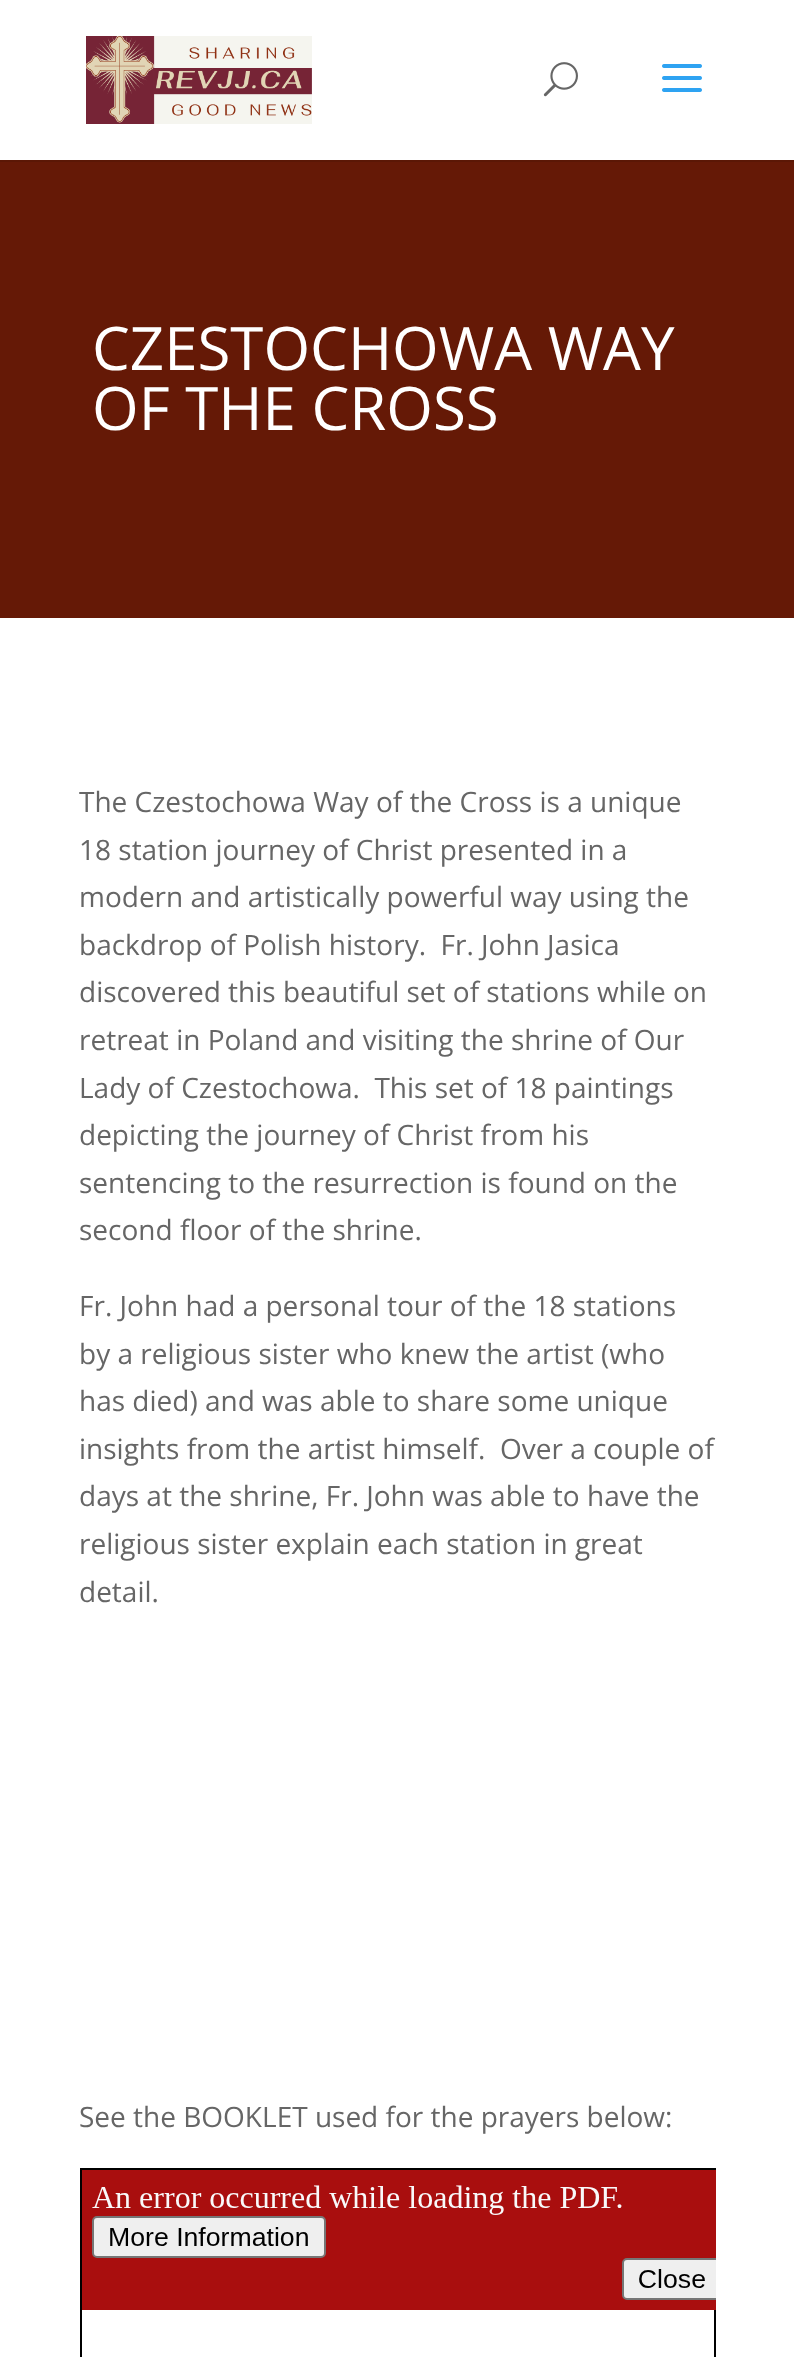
async function draw(canvas) {
  canvas.width = 794;
  canvas.height = 2357;
  const ctx = canvas.getContext('2d');
  ctx.miterLimit = 4;
  ctx.fontKerning = 'normal';
  function label(s, x, y, font, color) {
    ctx.font = font;
    ctx.fillStyle = color;
    ctx.fillText(s, x, y);
  }
  function rect(x, y, w, h, color) {
    ctx.fillStyle = color;
    ctx.fillRect(x, y, w, h);
  }
  async function image(src, x, y, w, h) {
    const img = new Image();
    img.src = src;
    await img.decode();
    ctx.drawImage(img, x, y, w, h);
  }

  rect(0, 0, 794, 2357, '#fff');
  rect(0, 160, 794, 2, '#5b1705');
  await image('assets/img1.png', 86, 36, 226, 88);
  await image('assets/img2.png', 543, 62, 35, 35);
  await image('assets/img3.png', 662, 64, 40, 28);
  rect(0, 162, 794, 456, '#651906');
  label('CZESTOCHOWA WAY', 92, 370, '60px Open Sans', '#fff');
  label('OF THE CROSS', 92, 430, '60px Open Sans', '#fff');
  label('The Czestochowa Way of the Cross is a unique', 79, 812, '28px Open Sans', '#666');
  label('18 station journey of Christ presented in a', 79, 860, '28px Open Sans', '#666');
  label('modern and artistically powerful way using the', 79, 907, '28px Open Sans', '#666');
  label('backdrop of Polish history.  Fr. John Jasica', 79, 955, '28px Open Sans', '#666');
  label('discovered this beautiful set of stations while on', 79, 1002, '28px Open Sans', '#666');
  label('retreat in Poland and visiting the shrine of Our', 79, 1050, '28px Open Sans', '#666');
  label('Lady of Czestochowa.  This set of 18 paintings', 79, 1098, '28px Open Sans', '#666');
  label('depicting the journey of Christ from his', 79, 1145, '28px Open Sans', '#666');
  label('sentencing to the resurrection is found on the', 79, 1193, '28px Open Sans', '#666');
  label('second floor of the shrine.', 79, 1240, '28px Open Sans', '#666');
  label('Fr. John had a personal tour of the 18 stations', 79, 1316, '28px Open Sans', '#666');
  label('by a religious sister who knew the artist (who', 79, 1364, '28px Open Sans', '#666');
  label('has died) and was able to share some unique', 79, 1411, '28px Open Sans', '#666');
  label('insights from the artist himself.  Over a couple of', 79, 1459, '28px Open Sans', '#666');
  label('days at the shrine, Fr. John was able to have the', 79, 1506, '28px Open Sans', '#666');
  label('religious sister explain each station in great', 79, 1554, '28px Open Sans', '#666');
  label('detail.', 79, 1602, '28px Open Sans', '#666');
  label('See the BOOKLET used for the prayers below:', 79, 2127, '28px Open Sans', '#666');
  await image('assets/img4.png', 80, 2168, 636, 189);
}

draw(document.querySelector('canvas'));
